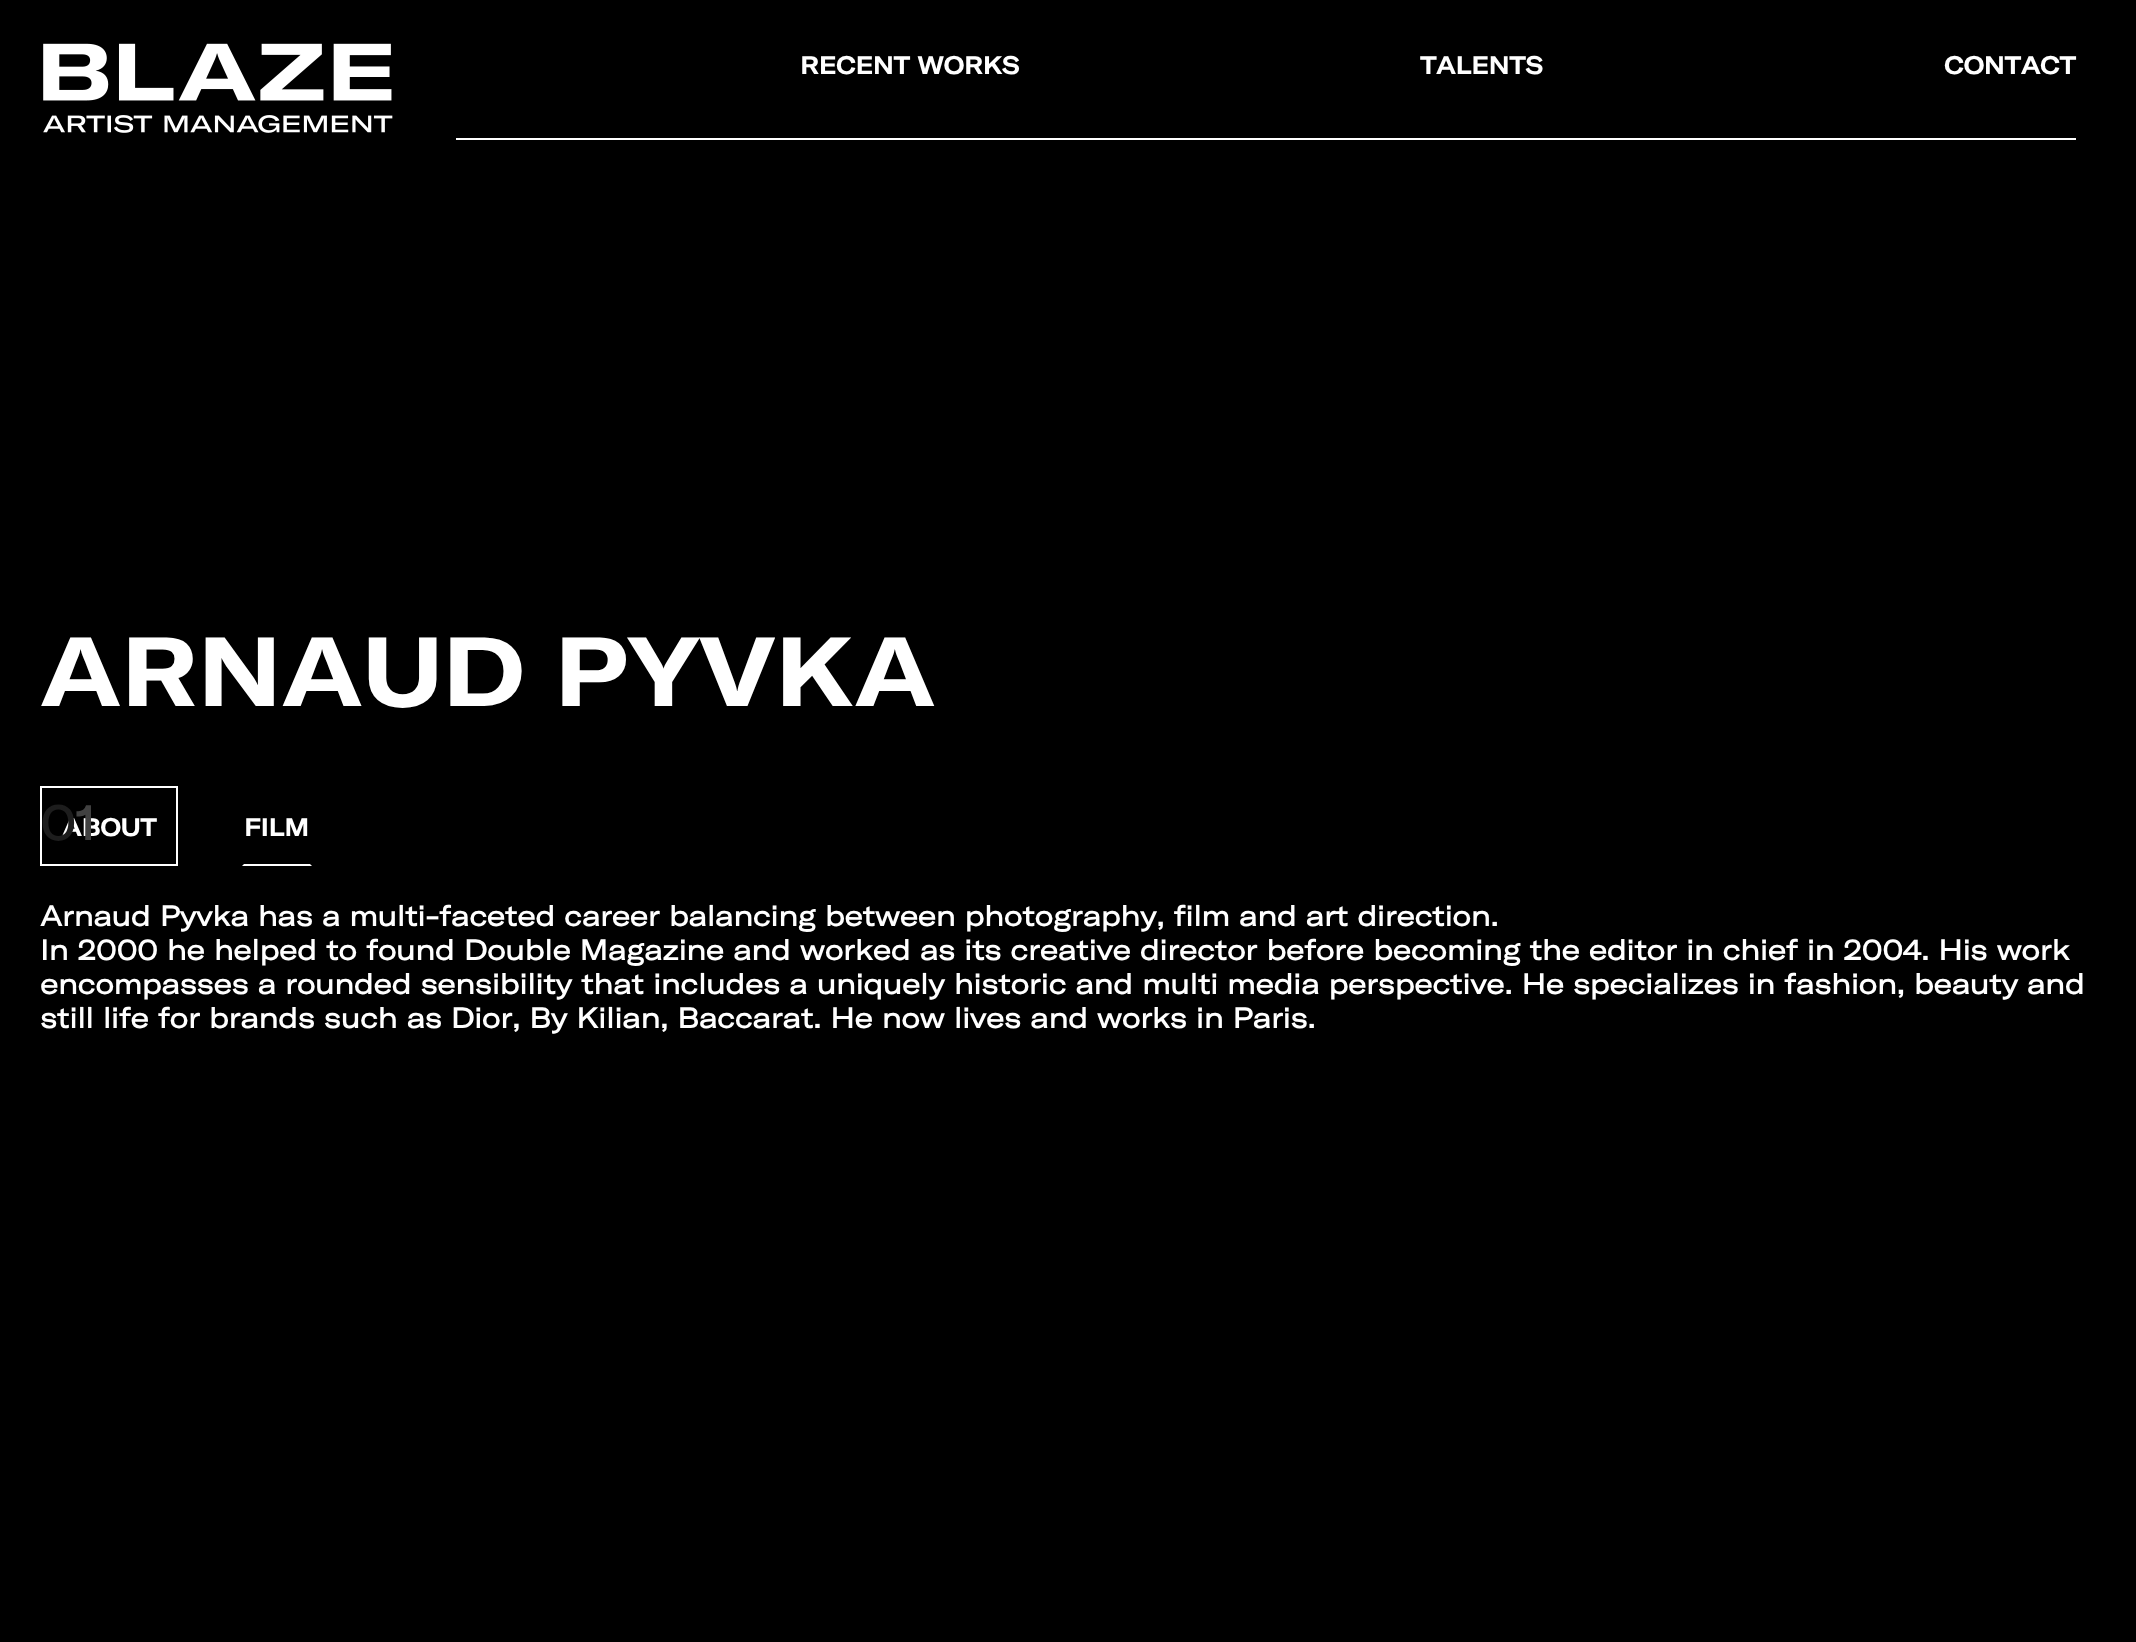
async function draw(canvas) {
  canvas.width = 2136;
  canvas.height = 1642;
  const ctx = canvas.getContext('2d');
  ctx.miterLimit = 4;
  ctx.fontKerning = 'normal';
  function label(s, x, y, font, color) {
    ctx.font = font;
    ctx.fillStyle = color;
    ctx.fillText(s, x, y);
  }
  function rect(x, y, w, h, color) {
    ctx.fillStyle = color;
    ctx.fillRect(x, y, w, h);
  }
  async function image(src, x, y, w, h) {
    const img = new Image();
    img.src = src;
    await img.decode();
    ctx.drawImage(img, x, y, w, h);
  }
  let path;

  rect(0, 0, 2136, 1642, '#000');
  await image('assets/img1.png', 43, 43, 350, 90);
  rect(456, 138, 1620, 2, '#fff');
  label('RECENT WORKS', 800, 74, 'bold 24px "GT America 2"', '#fff');
  label('TALENTS', 1420, 74, 'bold 24px "GT America 2"', '#fff');
  label('CONTACT', 1944, 74, 'bold 24px "GT America 2"', '#fff');
  label('ARNAUD PYVKA', 40, 706, 'bold 96.6px GT America', '#fff');
  ctx.strokeStyle = '#fff';
  ctx.lineWidth = 2;
  ctx.strokeRect(41, 787, 136, 78);
  label('ABOUT', 62, 836, 'bold 24px "GT America 2"', '#fff');
  path = new Path2D('M312 866H242L244 864H310Z');
  ctx.fill(path);
  label('FILM', 244, 836, 'bold 24px "GT America 2"', '#fff');
  label('Arnaud Pyvka has a multi-faceted career balancing between photography, film and art direction.', 40, 926, 'bold 28px "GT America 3"', '#fff');
  label('In 2000 he helped to found Double Magazine and worked as its creative director before becoming the editor in chief in 2004. His work', 40, 960, 'bold 28px "GT America 3"', '#fff');
  label('encompasses a rounded sensibility that includes a uniquely historic and multi media perspective. He specializes in fashion, beauty and', 40, 994, 'bold 28px "GT America 3"', '#fff');
  label('still life for brands such as Dior, By Kilian, Baccarat. He now lives and works in Paris.', 40, 1028, 'bold 28px "GT America 3"', '#fff');
  label('0', 40, 840, 'bold 48px "GT America 3"', '#1d1d1d');
  label('1', 75, 840, 'bold 48px "GT America 3"', '#414141');
}

draw(document.querySelector('canvas'));
